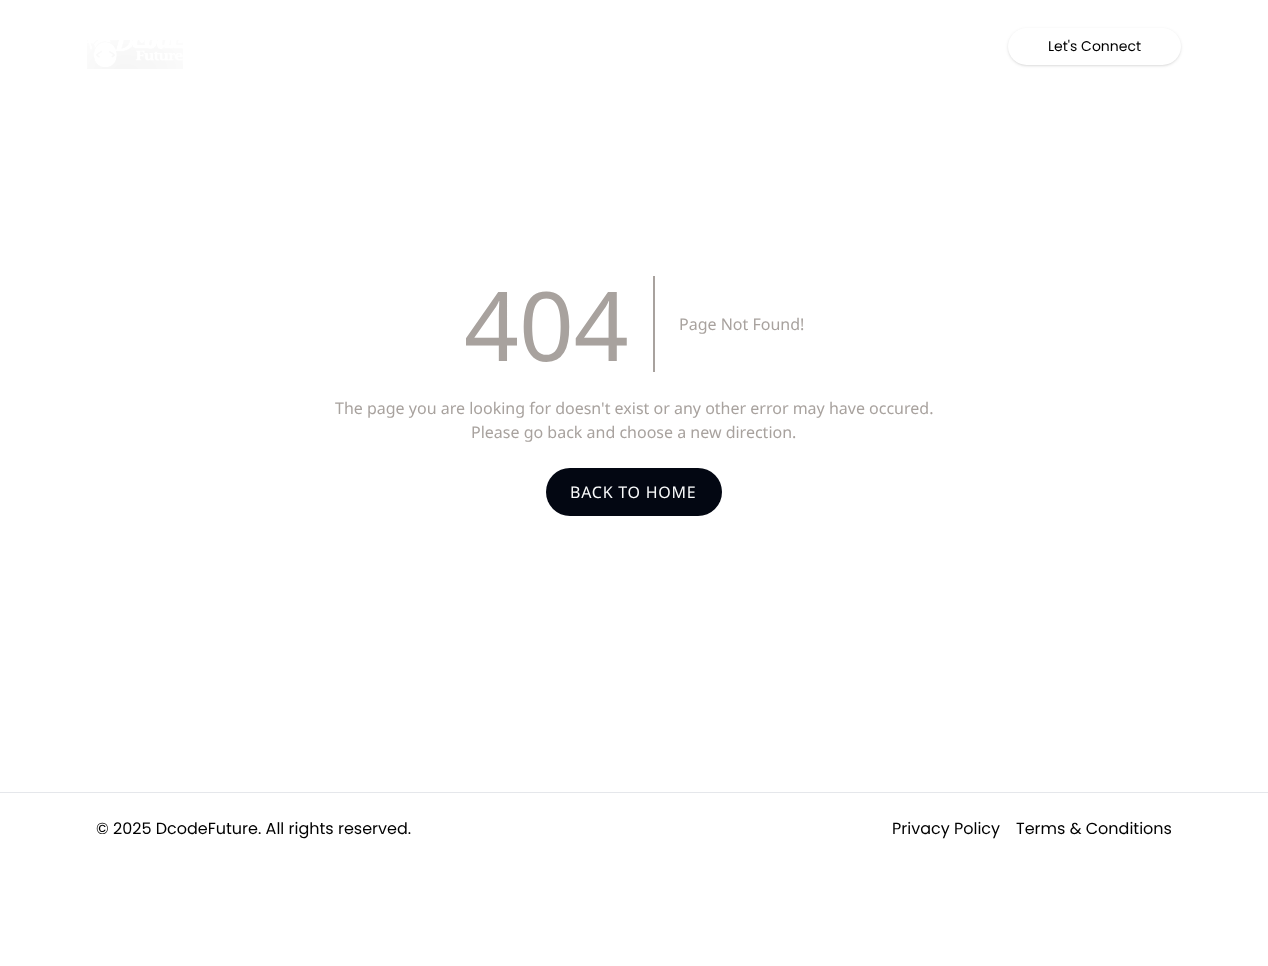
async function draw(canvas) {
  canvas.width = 1268;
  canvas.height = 966;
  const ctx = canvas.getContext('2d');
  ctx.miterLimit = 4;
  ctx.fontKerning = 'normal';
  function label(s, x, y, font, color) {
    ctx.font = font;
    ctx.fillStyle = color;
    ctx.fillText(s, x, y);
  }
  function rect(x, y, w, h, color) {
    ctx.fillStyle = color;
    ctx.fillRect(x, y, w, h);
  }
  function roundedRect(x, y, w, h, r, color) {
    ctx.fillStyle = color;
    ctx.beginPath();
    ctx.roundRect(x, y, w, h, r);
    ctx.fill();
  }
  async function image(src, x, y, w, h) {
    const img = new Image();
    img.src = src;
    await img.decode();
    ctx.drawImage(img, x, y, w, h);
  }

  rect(0, 0, 1268, 966, '#fff');
  await image('assets/img1.png', 87, 40, 96, 29);
  ctx.fillStyle = '#0000001a';
  ctx.filter = 'blur(1px)';
  ctx.beginPath();
  ctx.roundRect(1009, 30, 171, 35, 17.5);
  ctx.fill();
  ctx.filter = 'none';
  ctx.filter = 'blur(1.5px)';
  ctx.beginPath();
  ctx.roundRect(1008, 29, 173, 37, 18.5);
  ctx.fill();
  ctx.filter = 'none';
  roundedRect(1008, 28, 173, 37, 18.5, '#fff');
  label('Let\'s Connect', 1048, 51, '14px Poppins', '#000');
  label('404', 464, 361, '96px Noto Sans', '#a8a29e');
  rect(653, 276, 2, 96, '#a8a29e');
  label('Page Not Found!', 679, 330, '16px Noto Sans', '#a8a29e');
  label('The page you are looking for doesn\'t exist or any other error may have occured.', 335, 414, '16px Noto Sans', '#a8a29e');
  label('Please go back and choose a new direction.', 471, 438, '16px Noto Sans', '#a8a29e');
  roundedRect(546, 468, 176, 48, 24, '#030712');
  ctx.letterSpacing = '0.75px';
  label('BACK TO HOME', 570, 498, '16px Noto Sans', '#f9fafb');
  rect(0, 792, 1268, 1, '#e5e7eb');
  ctx.letterSpacing = '0px';
  label('© 2025 DcodeFuture. All rights reserved.', 96, 834, '16px Poppins', '#000');
  label('Privacy Policy', 892, 834, '16px Poppins', '#000');
  label('Terms & Conditions', 1016, 834, '16px Poppins', '#000');
}

draw(document.querySelector('canvas'));
